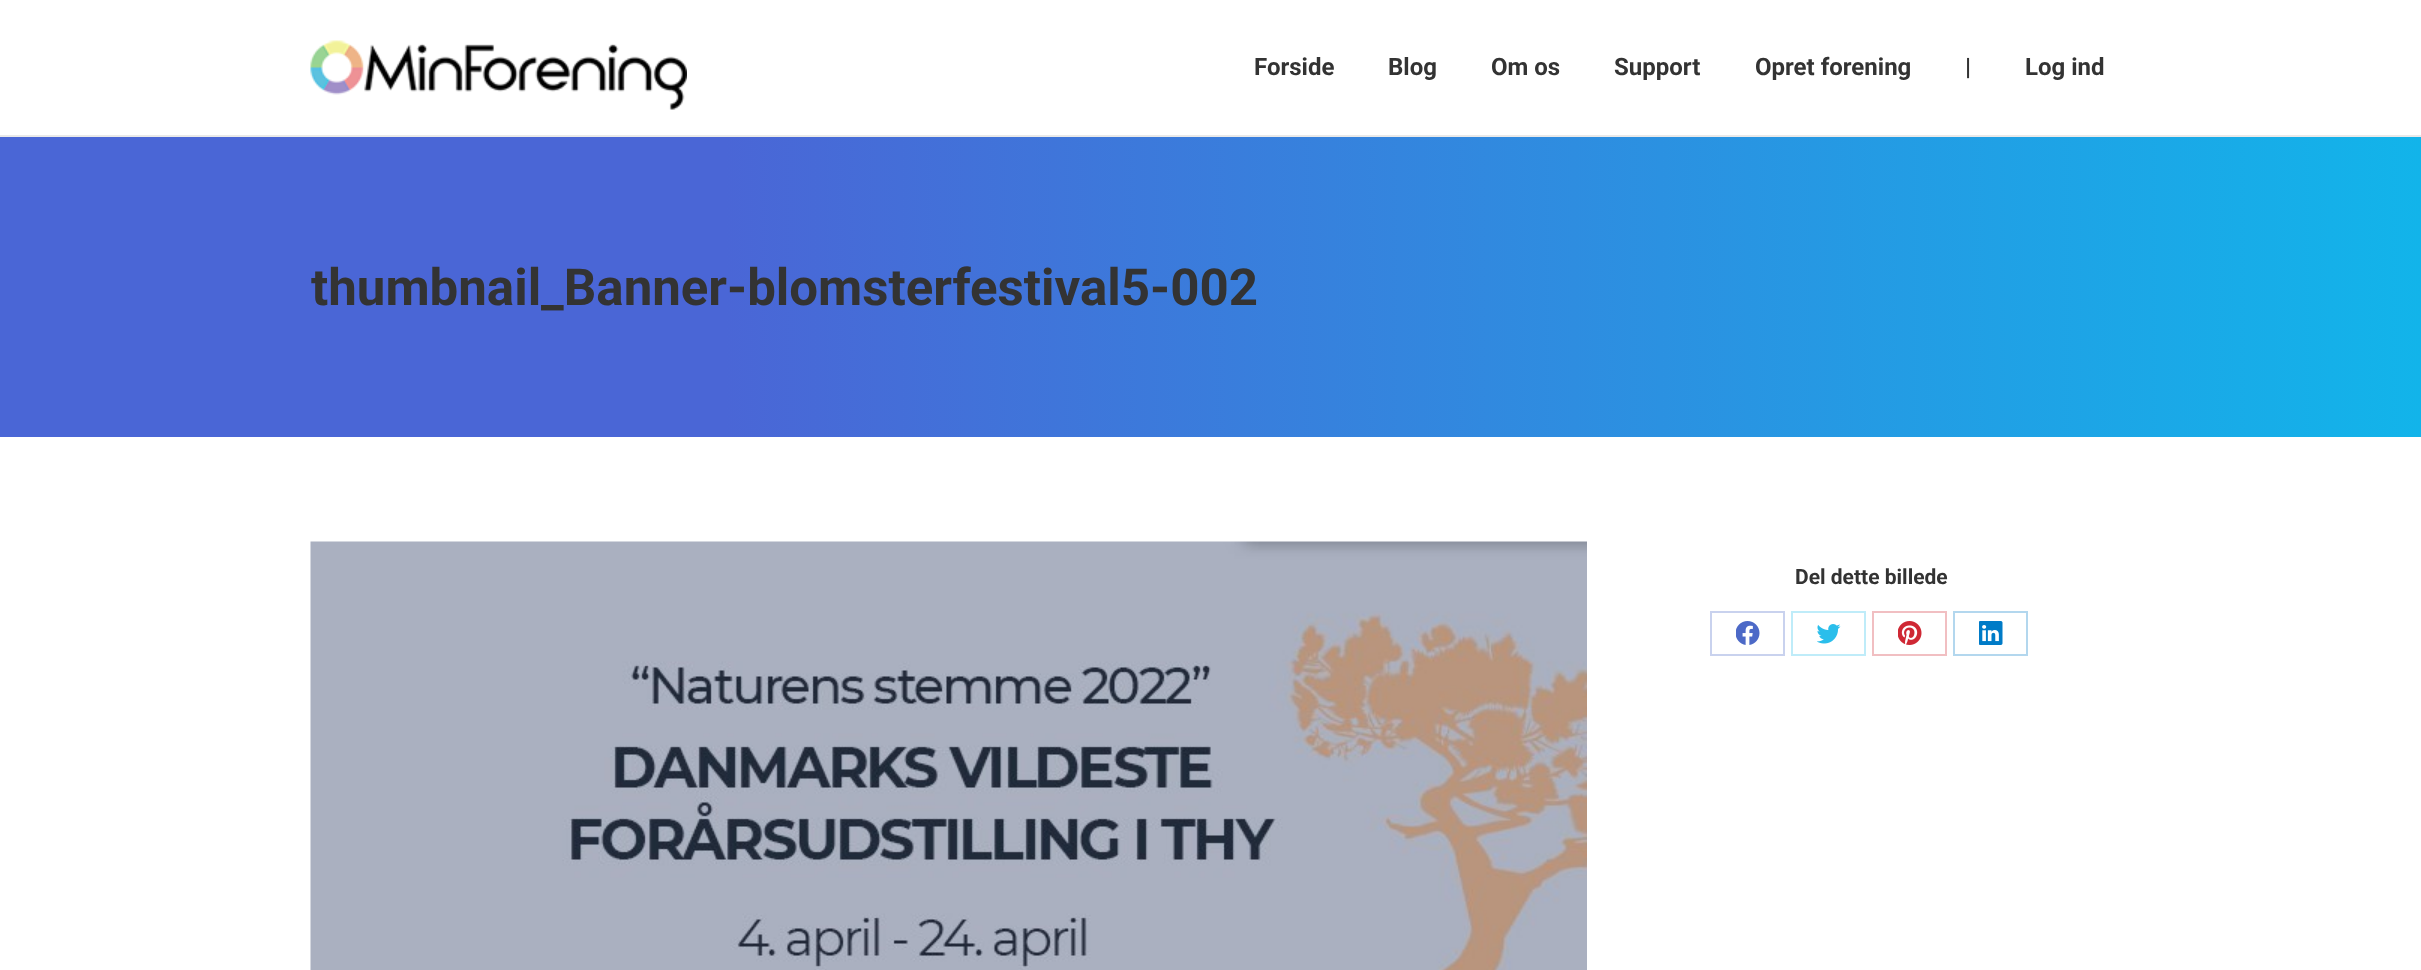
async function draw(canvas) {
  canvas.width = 2421;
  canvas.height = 970;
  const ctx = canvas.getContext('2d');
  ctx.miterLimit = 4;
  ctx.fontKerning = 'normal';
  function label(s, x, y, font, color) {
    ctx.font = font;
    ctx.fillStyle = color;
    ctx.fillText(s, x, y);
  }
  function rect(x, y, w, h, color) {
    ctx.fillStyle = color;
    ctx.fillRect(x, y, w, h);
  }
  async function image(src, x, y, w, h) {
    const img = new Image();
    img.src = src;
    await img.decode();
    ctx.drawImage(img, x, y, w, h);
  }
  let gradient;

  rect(0, 0, 2421, 970, '#fff');
  rect(0, 135, 2421, 2, '#e9e9e9');
  await image('assets/img1.png', 310, 40, 377, 70);
  label('Forside', 1254, 75, 'bold 24px Roboto', '#333');
  label('Blog', 1388, 75, 'bold 24px Roboto', '#333');
  label('Om os', 1491, 75, 'bold 24px Roboto', '#333');
  label('Support', 1614, 75, 'bold 24px Roboto', '#333');
  label('Opret forening', 1755, 75, 'bold 24px Roboto', '#333');
  label('|', 1965, 75, 'bold 24px Roboto', '#333');
  label('Log ind', 2025, 75, 'bold 24px Roboto', '#333');
  gradient = ctx.createLinearGradient(0, 287, 2421, 286);
  gradient.addColorStop(0.3, '#4a66d6');
  gradient.addColorStop(1, '#12b4ea');
  ctx.fillStyle = gradient;
  ctx.fillRect(0, 137, 2421, 300);
  ctx.save();
  ctx.beginPath();
  ctx.rect(311, 254, 946, 66);
  ctx.clip();
  label('thumbnail_Banner-blomsterfestival5-002', 311, 305, 'bold 51px Roboto', '#333');
  ctx.restore();
  await image('assets/img2.png', 310, 541, 1277, 429);
  label('Del dette billede', 1795, 584, 'bold 21px Roboto', '#333');
  ctx.strokeStyle = '#c9d2ee';
  ctx.lineWidth = 2;
  ctx.strokeRect(1711, 612, 73, 43);
  await image('assets/img3.png', 1736, 621, 24, 24);
  ctx.strokeStyle = '#bfecf9';
  ctx.strokeRect(1792, 612, 73, 43);
  await image('assets/img4.png', 1817, 624, 24, 20);
  ctx.strokeStyle = '#f1bfc2';
  ctx.strokeRect(1873, 612, 73, 43);
  await image('assets/img5.png', 1898, 621, 24, 24);
  ctx.strokeStyle = '#b3d7ee';
  ctx.strokeRect(1954, 612, 73, 43);
  await image('assets/img6.png', 1979, 621, 24, 24);
}

draw(document.querySelector('canvas'));
